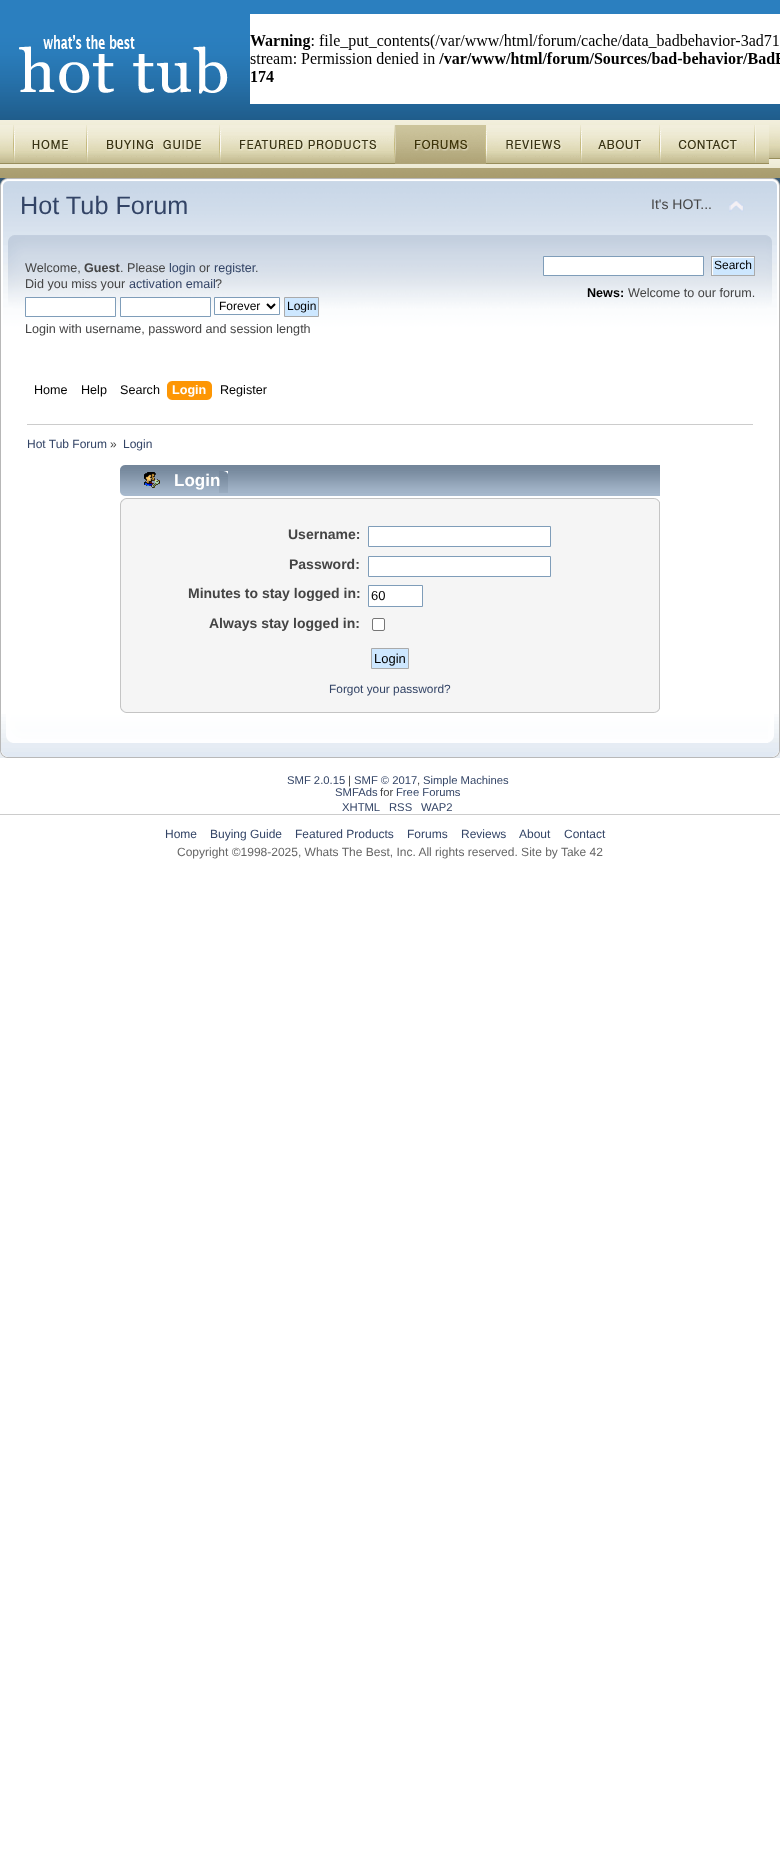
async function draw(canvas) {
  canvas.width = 780;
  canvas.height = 1863;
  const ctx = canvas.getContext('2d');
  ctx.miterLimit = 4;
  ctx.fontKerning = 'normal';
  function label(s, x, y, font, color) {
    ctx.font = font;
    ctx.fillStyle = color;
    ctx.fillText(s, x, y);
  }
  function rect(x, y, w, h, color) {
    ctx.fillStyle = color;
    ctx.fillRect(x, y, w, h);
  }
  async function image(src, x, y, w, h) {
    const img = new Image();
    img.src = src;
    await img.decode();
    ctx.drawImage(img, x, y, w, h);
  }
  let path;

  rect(0, 0, 780, 1863, '#fff');
  await image('assets/img1.png', 0, 0, 780, 120);
  await image('assets/img2.png', 19, 35, 209, 59);
  await image('assets/img3.png', 250, 14, 530, 90);
  await image('assets/img4.png', 0, 120, 780, 48);
  await image('assets/img5.png', 0, 125, 14, 39);
  await image('assets/img6.png', 14, 125, 73, 39);
  await image('assets/img7.png', 87, 125, 133, 39);
  await image('assets/img8.png', 220, 125, 175, 39);
  await image('assets/img9.png', 395, 125, 91, 39);
  await image('assets/img10.png', 486, 125, 95, 39);
  await image('assets/img11.png', 581, 125, 79, 39);
  await image('assets/img12.png', 660, 125, 95, 39);
  await image('assets/img13.png', 755, 125, 14, 39);
  await image('assets/img14.png', 0, 168, 780, 10);
  await image('assets/img15.png', 0, 178, 766, 239);
  await image('assets/img16.png', 766, 178, 14, 239);
  label('Hot Tub Forum', 20, 214, '25.25px Liberation Sans', '#346');
  label('It\'s HOT...', 651, 209, '14px Liberation Sans', '#444');
  await image('assets/img17.png', 729, 200, 15, 12);
  label('Welcome,', 25, 272, '12.6px Liberation Sans', '#444');
  label('Guest', 84, 272, 'bold 12.6px Liberation Sans', '#444');
  label('. Please', 120, 272, '12.6px Liberation Sans', '#444');
  label('login', 169, 272, '12.6px Liberation Sans', '#346');
  label('or', 199, 272, '12.6px Liberation Sans', '#444');
  label('register', 214, 272, '12.6px Liberation Sans', '#346');
  label('.', 255, 272, '12.6px Liberation Sans', '#444');
  label('Did you miss your', 25, 288, '12.6px Liberation Sans', '#444');
  label('activation email', 129, 288, '12.6px Liberation Sans', '#346');
  label('?', 215, 288, '12.6px Liberation Sans', '#444');
  ctx.fillStyle = '#fff';
  ctx.beginPath();
  ctx.rect(25.5, 297.5, 90, 19);
  ctx.fill();
  ctx.strokeStyle = '#7f9db9';
  ctx.stroke();
  ctx.beginPath();
  ctx.rect(120.5, 297.5, 90, 19);
  ctx.fill();
  ctx.stroke();
  ctx.beginPath();
  ctx.rect(214.5, 297.5, 65, 17);
  ctx.fill();
  ctx.stroke();
  path = new Path2D('M267 304L271 308L275 304');
  ctx.strokeStyle = '#000';
  ctx.lineWidth = 2;
  ctx.stroke(path);
  label('Forever', 219, 310, '12px Liberation Sans', '#000');
  ctx.fillStyle = '#cde7ff';
  ctx.beginPath();
  ctx.rect(284.5, 297.5, 34, 19);
  ctx.fill();
  ctx.strokeStyle = '#aaa';
  ctx.lineWidth = 1;
  ctx.stroke();
  label('Login', 287, 310, '12px Liberation Sans', '#000');
  label('Login with username, password and session length', 25, 333, '12.6px Liberation Sans', '#444');
  ctx.fillStyle = '#fff';
  ctx.beginPath();
  ctx.rect(543.5, 256.5, 160, 19);
  ctx.fill();
  ctx.strokeStyle = '#7f9db9';
  ctx.stroke();
  await image('assets/img18.png', 712, 257, 42, 18);
  ctx.strokeStyle = '#aaa';
  ctx.strokeRect(711.5, 256.5, 43, 19);
  label('Search', 714, 269, '12px Liberation Sans', '#000');
  label('News:', 587, 297, 'bold 12.6px Liberation Sans', '#000');
  label('Welcome to our forum.', 628, 297, '12.6px Liberation Sans', '#444');
  label('Home', 34, 394, '12.6px Liberation Sans', '#000');
  label('Help', 81, 394, '12.6px Liberation Sans', '#000');
  label('Search', 120, 394, '12.6px Liberation Sans', '#000');
  await image('assets/img19.png', 172, 381, 40, 19);
  await image('assets/img20.png', 167, 381, 5, 19);
  label('Login', 172, 394, 'bold 12.6px Liberation Sans', '#fff');
  label('Register', 220, 394, '12.6px Liberation Sans', '#000');
  rect(0, 417, 1, 297, '#b7b7b7');
  rect(779, 417, 1, 297, '#b7b7b7');
  rect(27, 424, 726, 1, '#ccc');
  label('Hot Tub Forum', 27, 448, '12px Liberation Sans', '#346');
  label('»', 110, 448, '12px Liberation Sans', '#444');
  label('Login', 123, 448, '12px Liberation Sans', '#346');
  await image('assets/img21.png', 120, 465, 540, 31);
  await image('assets/img22.png', 219, 471, 9, 22);
  await image('assets/img23.png', 144, 472, 16, 16);
  label('Login', 174, 486, 'bold 17px Liberation Sans', '#fff');
  await image('assets/img24.png', 120, 498, 534, 11);
  await image('assets/img25.png', 654, 498, 6, 11);
  rect(121, 509, 538, 193, '#f5f5f5');
  rect(659, 509, 1, 193, '#c5c5c5');
  rect(120, 509, 1, 193, '#c5c5c5');
  label('Username:', 288, 539, 'bold 14px Liberation Sans', '#444');
  ctx.fillStyle = '#fff';
  ctx.beginPath();
  ctx.rect(368.5, 526.5, 182, 20);
  ctx.fill();
  ctx.strokeStyle = '#7f9db9';
  ctx.stroke();
  label('Password:', 289, 569, 'bold 14px Liberation Sans', '#444');
  ctx.fillStyle = '#fff';
  ctx.beginPath();
  ctx.rect(368.5, 556.5, 182, 20);
  ctx.fill();
  ctx.stroke();
  label('Minutes to stay logged in:', 188, 598, 'bold 14px Liberation Sans', '#444');
  ctx.fillStyle = '#fff';
  ctx.beginPath();
  ctx.rect(368.5, 585.5, 54, 21);
  ctx.fill();
  ctx.stroke();
  label('60', 371, 600, '13px Liberation Sans', '#000');
  label('Always stay logged in:', 209, 628, 'bold 14px Liberation Sans', '#444');
  ctx.fillStyle = '#fff';
  ctx.beginPath();
  ctx.roundRect(372.5, 618.5, 12, 12, 1.5);
  ctx.fill();
  ctx.strokeStyle = '#767676';
  ctx.stroke();
  ctx.fillStyle = '#cde7ff';
  ctx.beginPath();
  ctx.rect(371.5, 648.5, 37, 20);
  ctx.fill();
  ctx.strokeStyle = '#aaa';
  ctx.stroke();
  label('Login', 374, 663, '13px Liberation Sans', '#000');
  label('Forgot your password?', 329, 693, '11.9px Liberation Sans', '#346');
  await image('assets/img26.png', 120, 702, 534, 11);
  await image('assets/img27.png', 654, 702, 6, 11);
  await image('assets/img28.png', 0, 714, 768, 44);
  await image('assets/img29.png', 768, 714, 12, 44);
  label('SMF 2.0.15', 287, 784, '11.25px Liberation Sans', '#346');
  label('|', 348, 784, '11.25px Liberation Sans', '#444');
  label('SMF © 2017', 354, 784, '11.25px Liberation Sans', '#346');
  label(',', 417, 784, '11.25px Liberation Sans', '#444');
  label('Simple Machines', 423, 784, '11.25px Liberation Sans', '#346');
  label('SMFAds', 335, 796, '11.25px Liberation Sans', '#346');
  label('for', 380, 796, '11.25px Liberation Sans', '#444');
  label('Free Forums', 396, 796, '11.25px Liberation Sans', '#346');
  label('XHTML', 342, 811, '11.25px Liberation Sans', '#346');
  label('RSS', 389, 811, '11.25px Liberation Sans', '#346');
  label('WAP2', 421, 811, '11.25px Liberation Sans', '#346');
  rect(0, 814, 780, 1, '#ccc');
  label('Home', 165, 838, '12px Liberation Sans', '#346');
  label('Buying Guide', 210, 838, '12px Liberation Sans', '#346');
  label('Featured Products', 295, 838, '12px Liberation Sans', '#346');
  label('Forums', 407, 838, '12px Liberation Sans', '#346');
  label('Reviews', 461, 838, '12px Liberation Sans', '#346');
  label('About', 519, 838, '12px Liberation Sans', '#346');
  label('Contact', 564, 838, '12px Liberation Sans', '#346');
  label('Copyright ©1998-2025, Whats The Best, Inc. All rights reserved. Site by Take 42', 177, 856, '12px Liberation Sans', '#666');
}

draw(document.querySelector('canvas'));
